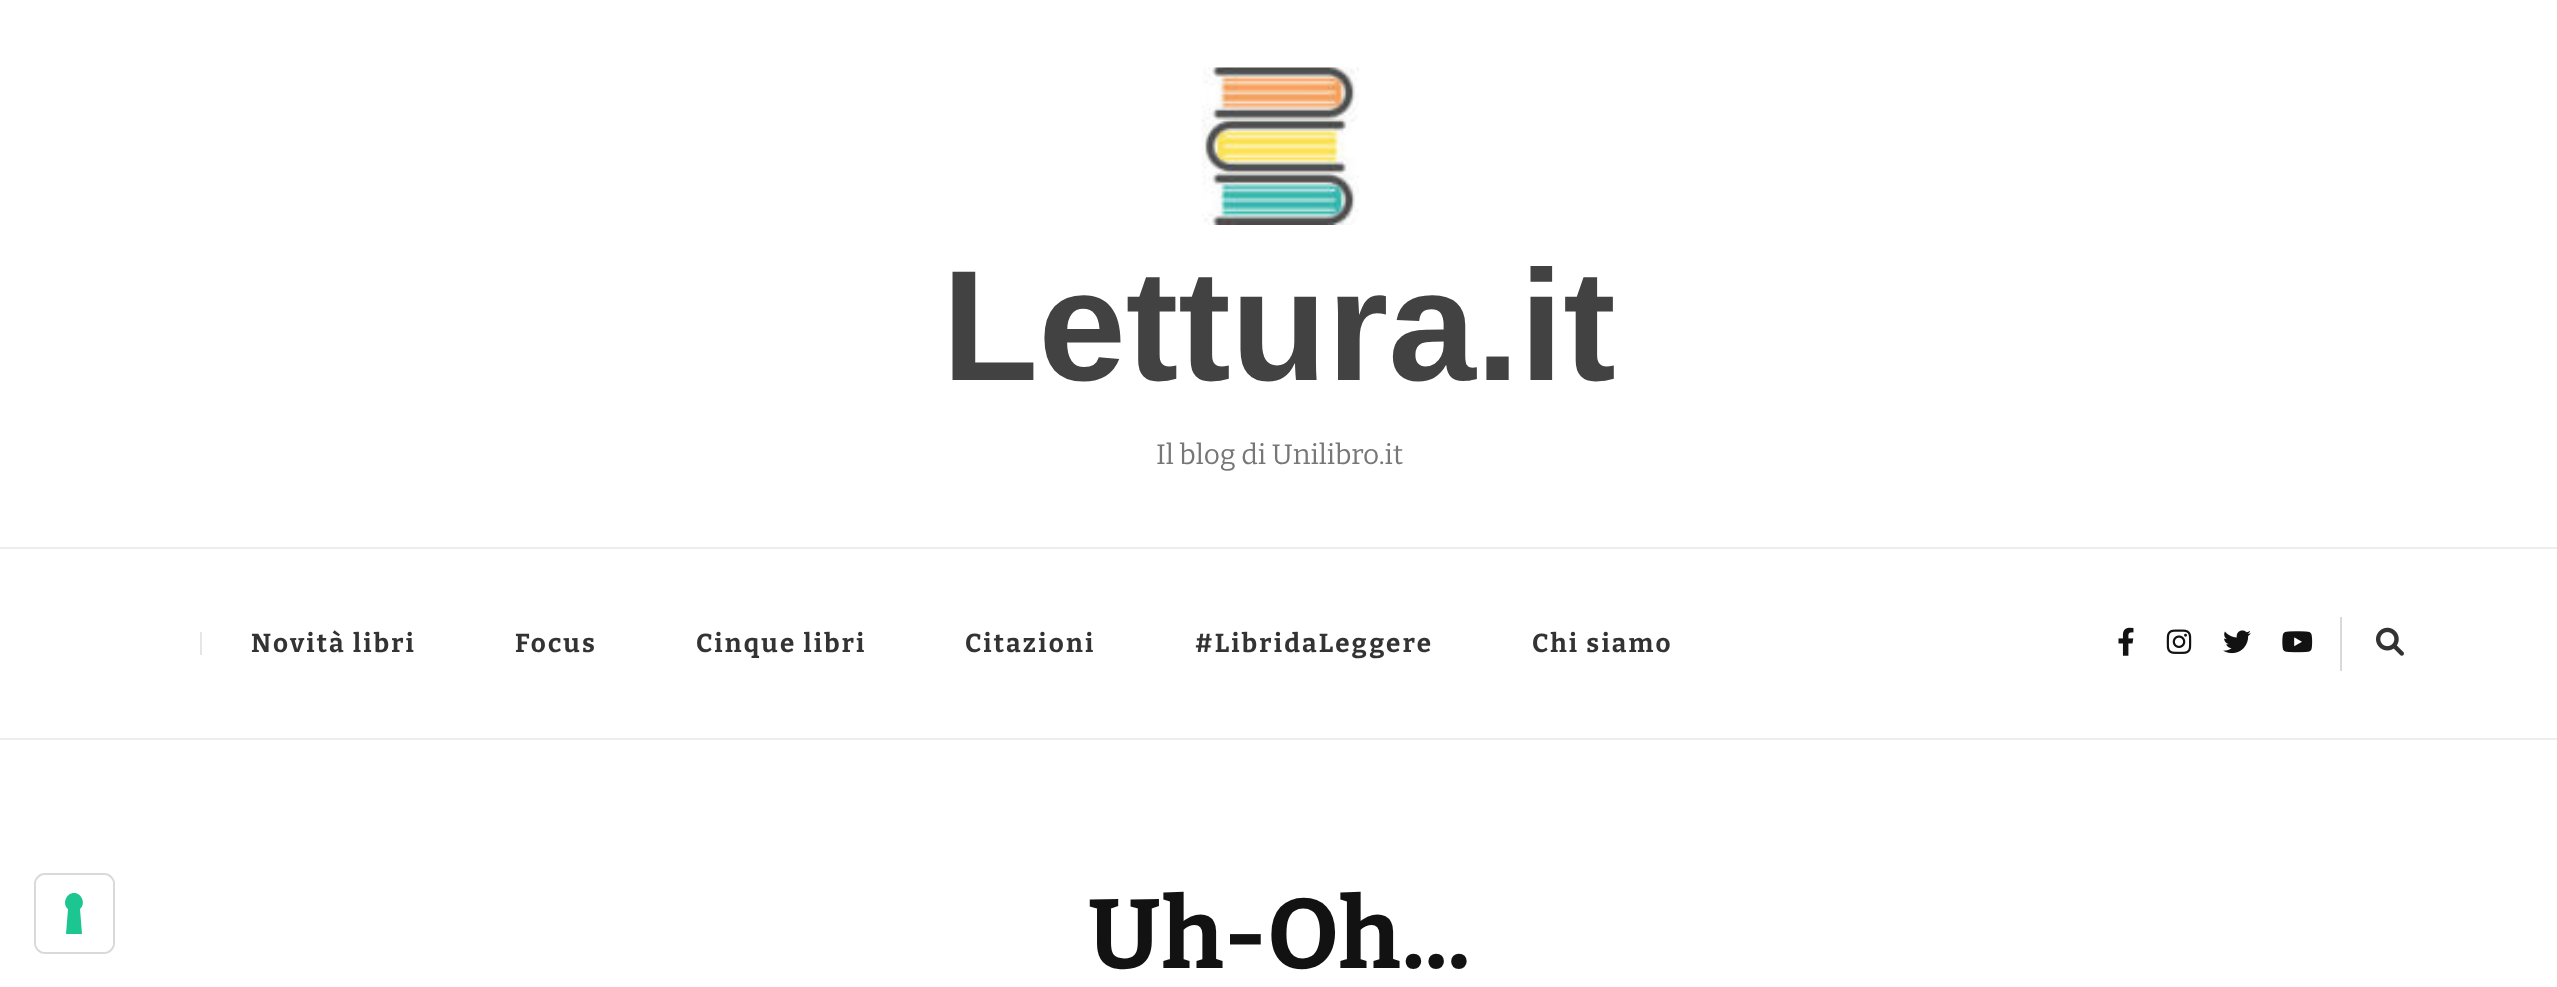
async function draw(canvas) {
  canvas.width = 2557;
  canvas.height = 987;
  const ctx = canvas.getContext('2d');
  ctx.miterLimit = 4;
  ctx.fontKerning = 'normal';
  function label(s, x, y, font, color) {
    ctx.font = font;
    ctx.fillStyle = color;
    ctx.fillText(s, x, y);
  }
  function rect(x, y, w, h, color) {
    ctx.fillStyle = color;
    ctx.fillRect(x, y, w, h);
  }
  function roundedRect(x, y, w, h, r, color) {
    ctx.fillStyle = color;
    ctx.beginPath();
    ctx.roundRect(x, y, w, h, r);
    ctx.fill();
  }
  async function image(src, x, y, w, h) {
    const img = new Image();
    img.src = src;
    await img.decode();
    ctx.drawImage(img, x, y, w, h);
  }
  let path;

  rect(0, 0, 2557, 987, '#fff');
  ctx.beginPath();
  ctx.roundRect(35, 874, 79, 79, 10);
  ctx.strokeStyle = '#d9d9d9';
  ctx.lineWidth = 2;
  ctx.stroke();
  roundedRect(36, 875, 77, 77, 9, '#fff');
  ctx.fillStyle = '#1cc691';
  path = new Path2D('M74 893C82 893 86 904 80 909L82 934H66L68 909C62 904 66 893 74 893Z');
  ctx.fill(path, 'evenodd');
  await image('assets/img1.png', 1201, 67, 158, 158);
  label('Lettura.it', 942, 380, 'bold 157.5px Liberation Sans', '#424242');
  label('Il blog di Unilibro.it', 1156, 464, '28px Bitter', '#777');
  rect(0, 547, 2557, 2, '#ededed');
  rect(0, 738, 2557, 2, '#ededed');
  rect(200, 632, 2, 23, '#e6e6e6');
  ctx.letterSpacing = '2.25px';
  label('Novità libri', 251, 652, 'bold 26px Bitter', '#333');
  label('Focus', 515, 652, 'bold 26px Bitter', '#333');
  label('Cinque libri', 696, 652, 'bold 26px Bitter', '#333');
  label('Citazioni', 965, 652, 'bold 26px Bitter', '#333');
  label('#LibridaLeggere', 1195, 652, 'bold 26px Bitter', '#333');
  label('Chi siamo', 1532, 652, 'bold 26px Bitter', '#333');
  await image('assets/img2.png', 2118, 627, 16, 29);
  await image('assets/img3.png', 2166, 629, 26, 25);
  await image('assets/img4.png', 2223, 630, 28, 24);
  await image('assets/img5.png', 2282, 631, 31, 22);
  rect(2340, 617, 2, 54, '#d9d9d9');
  await image('assets/img6.png', 2376, 627, 28, 29);
  ctx.letterSpacing = '0px';
  label('Uh-Oh...', 1088, 968, 'bold 98px Bitter', '#121212');
}

draw(document.querySelector('canvas'));
